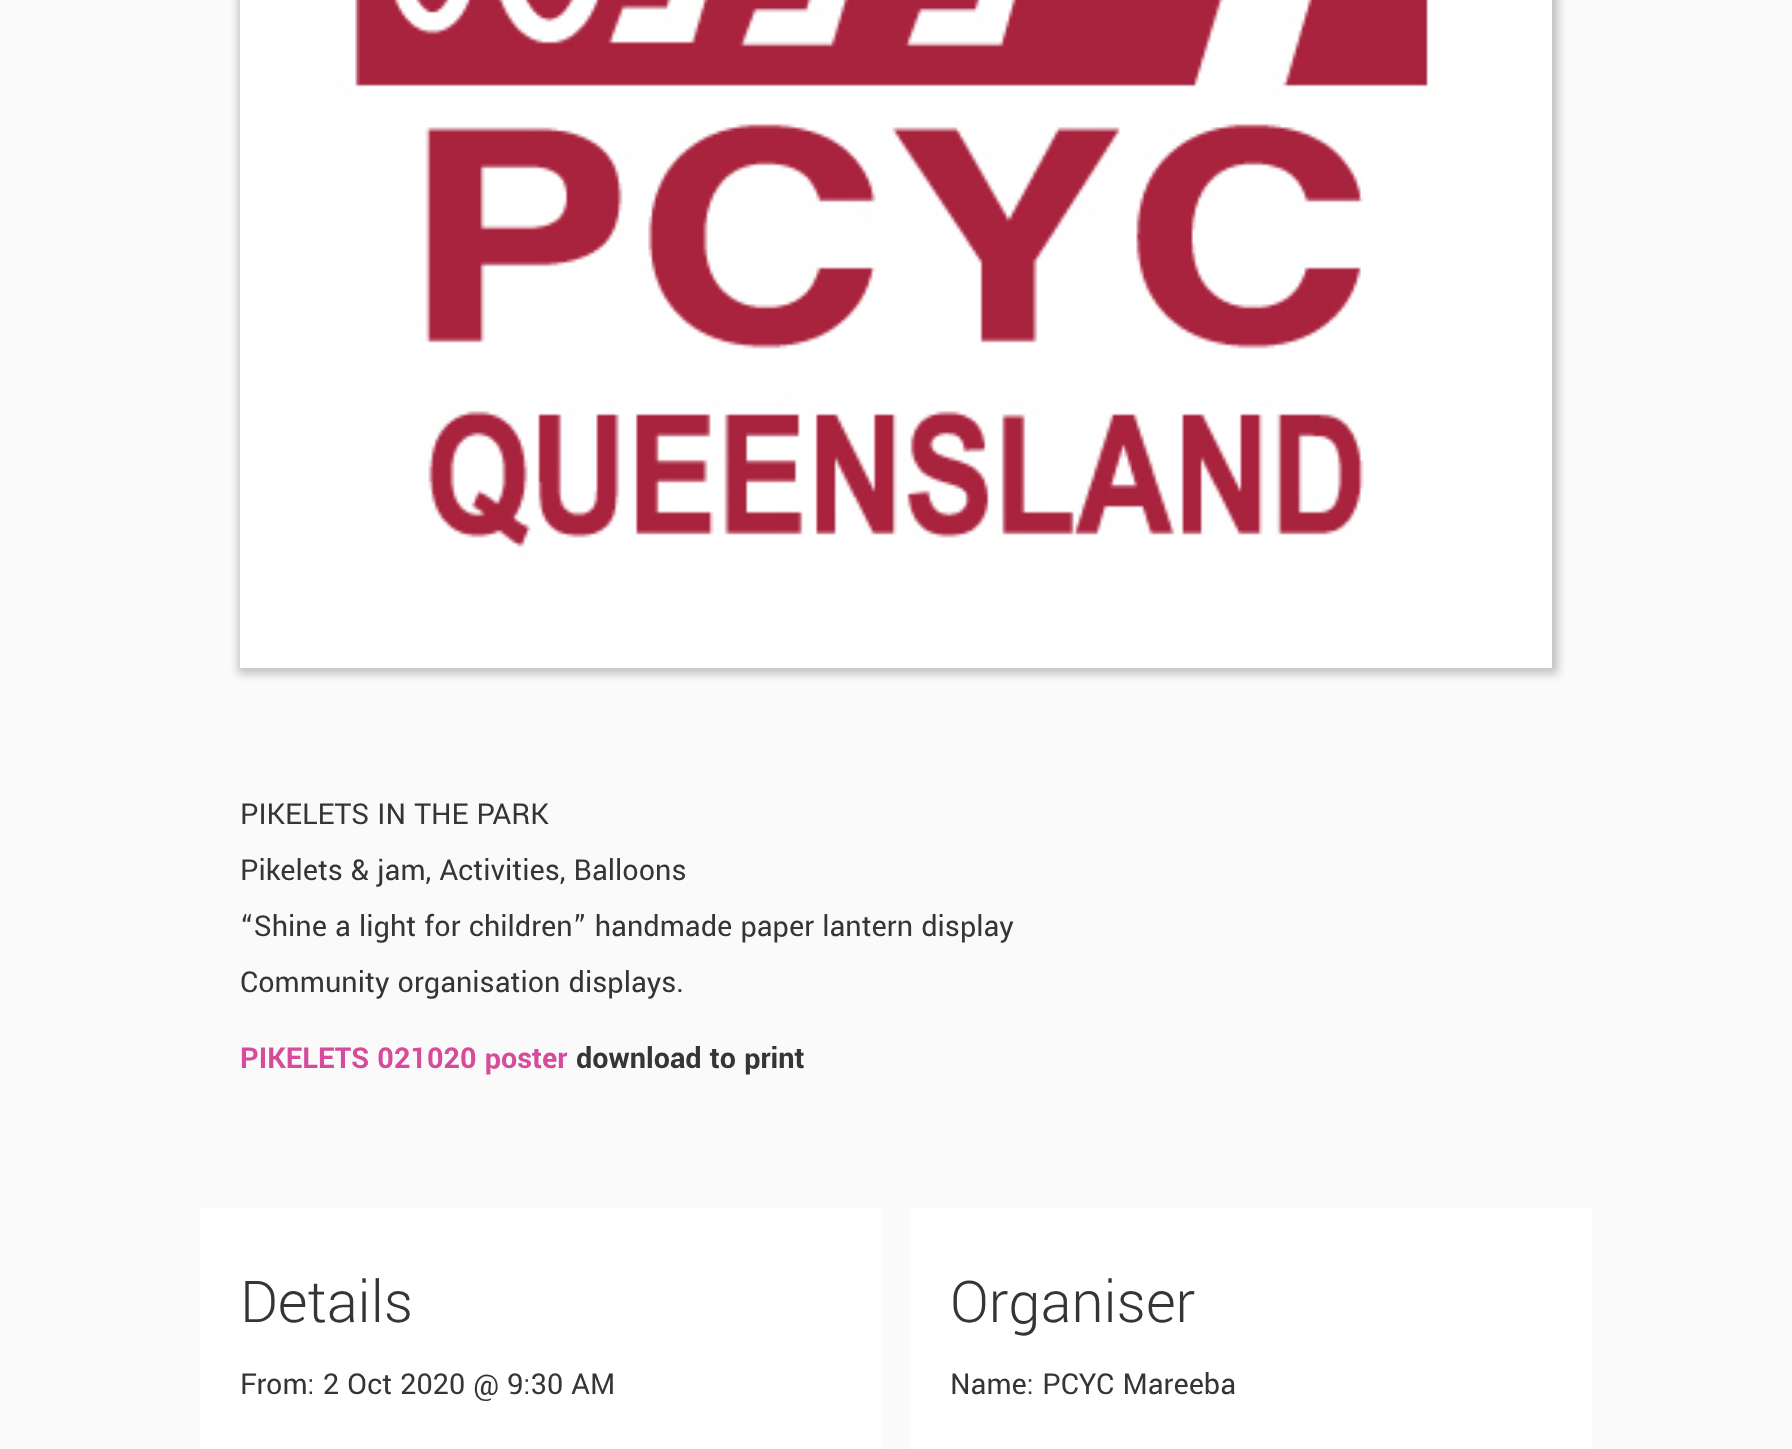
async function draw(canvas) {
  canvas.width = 1792;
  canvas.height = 1449;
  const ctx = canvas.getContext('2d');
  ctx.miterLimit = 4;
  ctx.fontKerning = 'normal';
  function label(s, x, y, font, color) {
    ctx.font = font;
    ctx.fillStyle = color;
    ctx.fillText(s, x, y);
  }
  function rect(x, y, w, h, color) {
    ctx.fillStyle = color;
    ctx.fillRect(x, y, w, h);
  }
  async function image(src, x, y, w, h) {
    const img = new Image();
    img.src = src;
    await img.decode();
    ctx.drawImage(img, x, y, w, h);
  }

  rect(0, 0, 1792, 1449, '#fafafa');
  ctx.fillStyle = '#32323247';
  ctx.filter = 'blur(4px)';
  ctx.beginPath();
  ctx.rect(238, -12, 1320, 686);
  ctx.fill();
  ctx.filter = 'none';
  await image('assets/img1.png', 240, 0, 1312, 668);
  label('PIKELETS IN THE PARK', 240, 824, '32px Yantramanav', '#353535');
  label('Pikelets & jam, Activities, Balloons', 240, 880, '32px Yantramanav', '#353535');
  label('“Shine a light for children” handmade paper lantern display', 240, 936, '32px Yantramanav', '#353535');
  label('Community organisation displays.', 240, 992, '32px Yantramanav', '#353535');
  label('PIKELETS 021020 poster', 240, 1068, 'bold 32px Yantramanav', '#d64b9a');
  label('download to print', 576, 1068, 'bold 32px Yantramanav', '#353535');
  rect(200, 1208, 682, 241, '#fff');
  label('Details', 240, 1322, '300 64px Yantramanav', '#353535');
  label('From: 2 Oct 2020 @ 9:30 AM', 240, 1394, '32px Yantramanav', '#353535');
  rect(910, 1208, 682, 241, '#fff');
  label('Organiser', 950, 1322, '300 64px Yantramanav', '#353535');
  label('Name: PCYC Mareeba', 950, 1394, '32px Yantramanav', '#353535');
}

draw(document.querySelector('canvas'));
